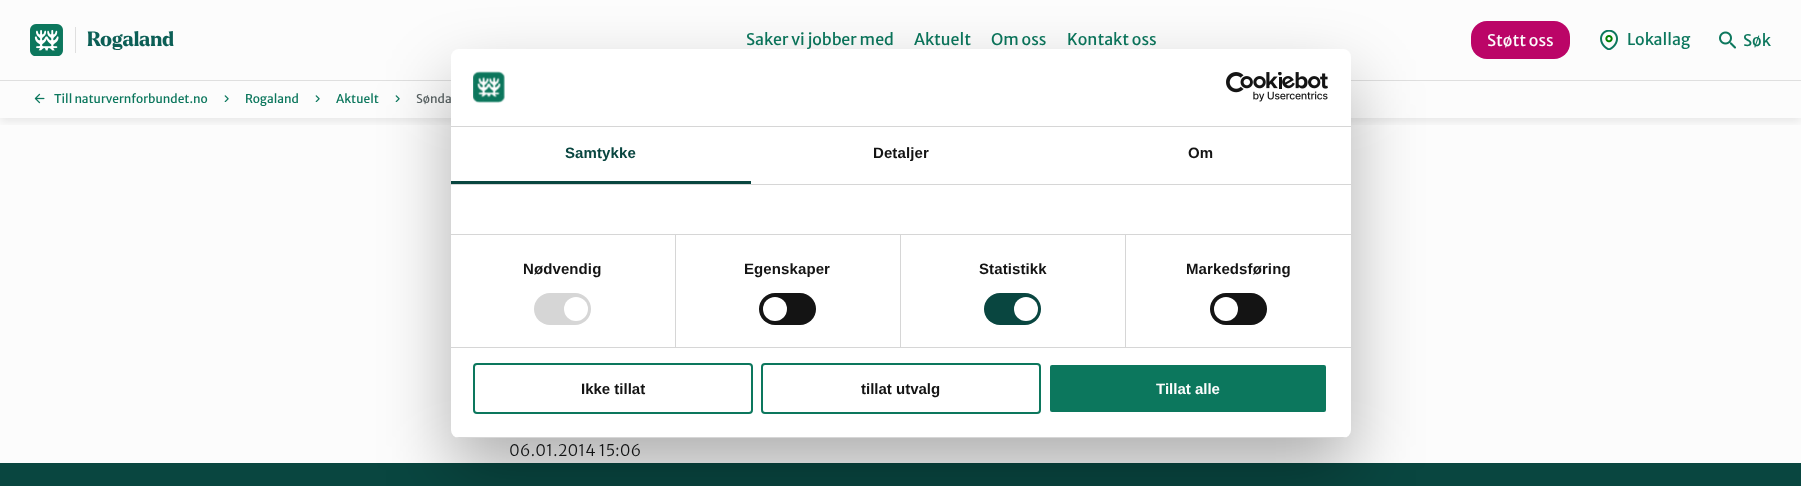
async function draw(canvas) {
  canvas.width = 1801;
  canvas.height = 486;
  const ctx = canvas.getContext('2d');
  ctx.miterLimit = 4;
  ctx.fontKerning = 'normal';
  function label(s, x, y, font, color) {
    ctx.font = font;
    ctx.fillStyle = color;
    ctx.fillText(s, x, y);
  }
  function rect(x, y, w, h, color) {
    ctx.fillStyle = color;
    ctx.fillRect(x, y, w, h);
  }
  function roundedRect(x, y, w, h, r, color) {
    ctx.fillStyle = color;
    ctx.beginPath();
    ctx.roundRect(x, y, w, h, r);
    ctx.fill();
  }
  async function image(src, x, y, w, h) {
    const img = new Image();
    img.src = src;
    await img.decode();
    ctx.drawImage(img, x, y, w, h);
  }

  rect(0, 0, 1801, 486, '#fcfcfc');
  ctx.save();
  ctx.beginPath();
  ctx.rect(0, 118, 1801, 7);
  ctx.clip();
  ctx.fillStyle = '#00000014';
  ctx.filter = 'blur(4px)';
  ctx.beginPath();
  ctx.rect(0, 4, 1801, 118);
  ctx.fill();
  ctx.filter = 'none';
  ctx.restore();
  await image('assets/img1.png', 30, 24, 33, 32);
  rect(75, 27, 1, 26, '#dfdfdf');
  label('Rogaland', 87, 46, '800 20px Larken', '#0c5f56');
  label('Saker vi jobber med', 746, 45, '16px Merriweather Sans', '#0c775d');
  label('Aktuelt', 914, 45, '16px Merriweather Sans', '#0c775d');
  label('Om oss', 991, 45, '16px Merriweather Sans', '#0c775d');
  label('Kontakt oss', 1067, 45, '16px Merriweather Sans', '#0c775d');
  roundedRect(1471, 21, 99, 38, 16, '#bb0567');
  label('Støtt oss', 1487, 46, '16px Merriweather Sans', '#fcfcfc');
  await image('assets/img2.png', 1600, 30, 18, 20);
  label('Lokallag', 1627, 45, '16px Merriweather Sans', '#0c775d');
  await image('assets/img3.png', 1719, 31, 17, 18);
  label('Søk', 1743, 46, '16px Merriweather Sans', '#0c775d');
  rect(0, 80, 1801, 1, '#dfdfdf');
  await image('assets/img4.png', 34, 93, 11, 11);
  label('Till naturvernforbundet.no', 54, 103, '12px Merriweather Sans', '#0c775d');
  await image('assets/img5.png', 224, 95, 5, 7);
  label('Rogaland', 245, 103, '12px Merriweather Sans', '#0c775d');
  await image('assets/img5.png', 315, 95, 5, 7);
  label('Aktuelt', 336, 103, '12px Merriweather Sans', '#0c775d');
  await image('assets/img5.png', 395, 95, 5, 7);
  label('Sønda', 416, 103, '12px Merriweather Sans', '#5c6566');
  label('06.01.2014 15:06', 509, 456, '300 16px Merriweather Sans', '#17191a');
  rect(0, 463, 1801, 23, '#094640');
  ctx.fillStyle = '#0000004d';
  ctx.filter = 'blur(34px)';
  ctx.beginPath();
  ctx.roundRect(451, 81, 900, 389, 8);
  ctx.fill();
  ctx.filter = 'none';
  roundedRect(451, 49, 900, 389, 8, '#fff');
  rect(451, 126, 900, 1, '#d6d6d6');
  await image('assets/img6.png', 473, 71, 32, 32);
  await image('assets/img7.png', 1226, 72, 102, 30);
  rect(451, 184, 900, 1, '#d6d6d6');
  rect(451, 181, 300, 3, '#094640');
  ctx.letterSpacing = '0.1px';
  label('Samtykke', 565, 158, 'bold 15px Liberation Sans', '#094640');
  label('Detaljer', 873, 158, 'bold 15px Liberation Sans', '#141414');
  label('Om', 1188, 158, 'bold 15px Liberation Sans', '#141414');
  rect(451, 234, 900, 1, '#d6d6d6');
  rect(451, 347, 900, 1, '#d6d6d6');
  rect(675, 235, 1, 112, '#d6d6d6');
  label('Nødvendig', 523, 274, 'bold 15px Liberation Sans', '#141414');
  roundedRect(534, 293, 57, 32, 16, '#d6d6d6');
  ctx.fillStyle = '#fff';
  ctx.beginPath();
  ctx.arc(576, 309, 12, 0, 2 * Math.PI);
  ctx.fill();
  rect(900, 235, 1, 112, '#d6d6d6');
  label('Egenskaper', 744, 274, 'bold 15px Liberation Sans', '#141414');
  roundedRect(759, 293, 57, 32, 16, '#141414');
  ctx.fillStyle = '#fff';
  ctx.beginPath();
  ctx.arc(775, 309, 12, 0, 2 * Math.PI);
  ctx.fill();
  rect(1125, 235, 1, 112, '#d6d6d6');
  label('Statistikk', 979, 274, 'bold 15px Liberation Sans', '#141414');
  roundedRect(984, 293, 57, 32, 16, '#094640');
  ctx.fillStyle = '#fff';
  ctx.beginPath();
  ctx.arc(1026, 309, 12, 0, 2 * Math.PI);
  ctx.fill();
  label('Markedsføring', 1186, 274, 'bold 15px Liberation Sans', '#141414');
  roundedRect(1210, 293, 57, 32, 16, '#141414');
  ctx.fillStyle = '#fff';
  ctx.beginPath();
  ctx.arc(1226, 309, 12, 0, 2 * Math.PI);
  ctx.fill();
  ctx.save();
  ctx.beginPath();
  ctx.roundRect(451, 49, 900, 389, 8);
  ctx.clip();
  rect(451, 437, 900, 1, '#d6d6d6');
  ctx.restore();
  ctx.beginPath();
  ctx.roundRect(474, 364, 278, 49, 3);
  ctx.strokeStyle = '#0c775d';
  ctx.lineWidth = 2;
  ctx.stroke();
  ctx.letterSpacing = '0px';
  label('Ikke tillat', 581, 394, 'bold 15px Liberation Sans', '#141414');
  ctx.beginPath();
  ctx.roundRect(762, 364, 278, 49, 3);
  ctx.stroke();
  label('tillat utvalg', 861, 394, 'bold 15px Liberation Sans', '#141414');
  ctx.fillStyle = '#0c775d';
  ctx.beginPath();
  ctx.roundRect(1049, 364, 278, 49, 3);
  ctx.fill();
  ctx.strokeStyle = '#fff';
  ctx.stroke();
  label('Tillat alle', 1156, 394, 'bold 15px Liberation Sans', '#fcfcfc');
}

draw(document.querySelector('canvas'));
